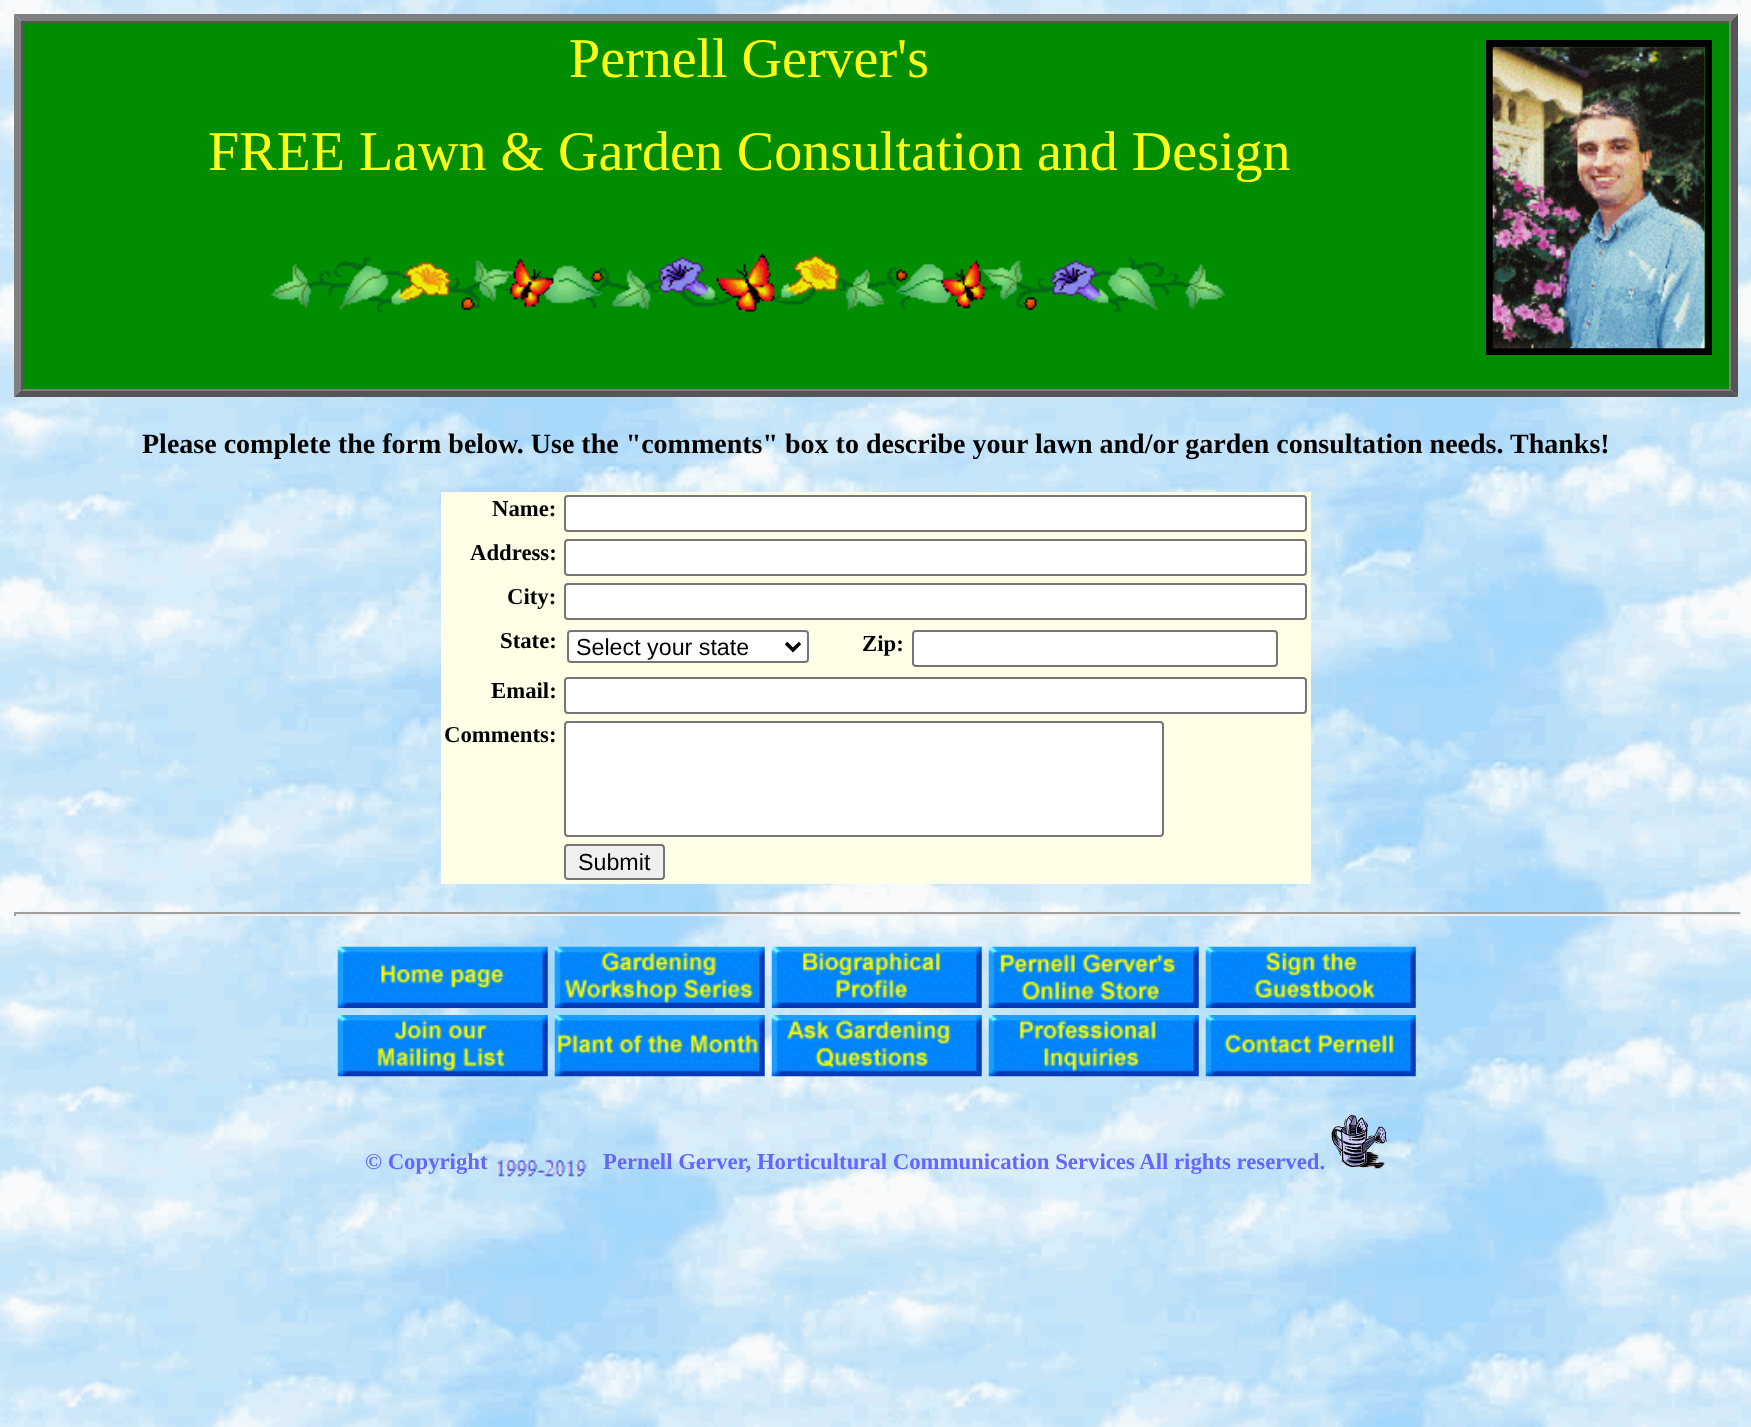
async function draw(canvas) {
  canvas.width = 1751;
  canvas.height = 1427;
  const ctx = canvas.getContext('2d');
  ctx.miterLimit = 4;
  ctx.fontKerning = 'normal';
  function label(s, x, y, font, color) {
    ctx.font = font;
    ctx.fillStyle = color;
    ctx.fillText(s, x, y);
  }
  function rect(x, y, w, h, color) {
    ctx.fillStyle = color;
    ctx.fillRect(x, y, w, h);
  }
  async function image(src, x, y, w, h) {
    const img = new Image();
    img.src = src;
    await img.decode();
    ctx.drawImage(img, x, y, w, h);
  }
  let path;

  rect(0, 0, 1751, 1427, '#fff');
  await image('assets/img1.png', 0, 0, 1751, 1427);
  ctx.fillStyle = '#808080';
  path = new Path2D('M14 14H1738L1731 21H21Z');
  ctx.fill(path);
  ctx.fillStyle = '#555';
  path = new Path2D('M1738 14V397L1731 390V21Z');
  ctx.fill(path);
  path = new Path2D('M1738 397H14L21 390H1731Z');
  ctx.fill(path);
  ctx.fillStyle = '#808080';
  path = new Path2D('M14 397V14L21 21V390Z');
  ctx.fill(path);
  rect(23, 23, 1706, 366, '#008e00');
  rect(21, 21, 1710, 2, '#555');
  rect(1729, 21, 2, 369, '#808080');
  rect(21, 389, 1710, 2, '#808080');
  rect(21, 21, 2, 369, '#555');
  label('Pernell Gerver\'s', 569, 77, '56px Liberation Serif', '#ffff17');
  ctx.strokeStyle = '#000';
  ctx.lineWidth = 7;
  ctx.strokeRect(1489.5, 43.5, 219, 308);
  await image('assets/img2.png', 1492, 47, 213, 302);
  label('FREE Lawn & Garden Consultation and Design', 208, 170, '56px Liberation Serif', '#ffff17');
  await image('assets/img3.png', 271, 253, 955, 59);
  label('Please complete the form below. Use the "comments" box to describe your lawn and/or garden consultation needs. Thanks!', 142, 453, 'bold 28px Liberation Serif', '#000');
  rect(441, 492, 870, 44, '#ffffe8');
  label('Name:', 492, 516, 'bold 22.75px Liberation Serif', '#000');
  ctx.fillStyle = '#fff';
  ctx.beginPath();
  ctx.roundRect(565, 496, 741, 35, 3);
  ctx.fill();
  ctx.strokeStyle = '#767676';
  ctx.lineWidth = 2;
  ctx.stroke();
  rect(441, 536, 870, 43, '#ffffe8');
  label('Address:', 470, 560, 'bold 22.75px Liberation Serif', '#000');
  ctx.fillStyle = '#fff';
  ctx.beginPath();
  ctx.roundRect(565, 540, 741, 35, 3);
  ctx.fill();
  ctx.stroke();
  rect(441, 579, 870, 44, '#ffffe8');
  label('City:', 507, 604, 'bold 22.75px Liberation Serif', '#000');
  ctx.fillStyle = '#fff';
  ctx.beginPath();
  ctx.roundRect(565, 584, 741, 35, 3);
  ctx.fill();
  ctx.stroke();
  rect(441, 623, 870, 51, '#ffffe8');
  label('State:', 500, 648, 'bold 22.75px Liberation Serif', '#000');
  ctx.fillStyle = '#fff';
  ctx.beginPath();
  ctx.roundRect(568, 631, 240, 31, 3);
  ctx.fill();
  ctx.stroke();
  path = new Path2D('M786 643L793 650L800 643');
  ctx.strokeStyle = '#000';
  ctx.lineWidth = 3.5;
  ctx.stroke(path);
  label('Select your state', 576, 655, '23.25px Liberation Sans', '#000');
  label('Zip:', 862, 651, 'bold 22.75px Liberation Serif', '#000');
  ctx.fillStyle = '#fff';
  ctx.beginPath();
  ctx.roundRect(913, 631, 364, 35, 3);
  ctx.fill();
  ctx.strokeStyle = '#767676';
  ctx.lineWidth = 2;
  ctx.stroke();
  rect(441, 674, 870, 44, '#ffffe8');
  label('Email:', 491, 698, 'bold 22.75px Liberation Serif', '#000');
  ctx.fillStyle = '#fff';
  ctx.beginPath();
  ctx.roundRect(565, 678, 741, 35, 3);
  ctx.fill();
  ctx.stroke();
  rect(441, 718, 870, 122, '#ffffe8');
  label('Comments:', 444, 742, 'bold 22.75px Liberation Serif', '#000');
  ctx.fillStyle = '#fff';
  ctx.beginPath();
  ctx.roundRect(565, 722, 598, 114, 3);
  ctx.fill();
  ctx.stroke();
  rect(441, 840, 870, 44, '#ffffe8');
  ctx.fillStyle = '#efefef';
  ctx.beginPath();
  ctx.roundRect(565, 845, 99, 34, 3);
  ctx.fill();
  ctx.stroke();
  label('Submit', 578, 870, '23.25px Liberation Sans', '#000');
  rect(14, 912, 1727, 2, '#9f9f9f');
  rect(1740, 912, 2, 4, '#eee');
  rect(14, 914, 1727, 2, '#eee');
  rect(14, 912, 2, 4, '#9f9f9f');
  await image('assets/img4.png', 337, 946, 211, 62);
  await image('assets/img5.png', 554, 946, 211, 62);
  await image('assets/img6.png', 771, 946, 211, 62);
  await image('assets/img7.png', 988, 946, 211, 62);
  await image('assets/img8.png', 1205, 946, 211, 62);
  await image('assets/img9.png', 337, 1015, 211, 62);
  await image('assets/img10.png', 554, 1015, 211, 62);
  await image('assets/img11.png', 771, 1015, 211, 62);
  await image('assets/img12.png', 988, 1015, 211, 62);
  await image('assets/img13.png', 1205, 1015, 211, 62);
  label('© Copyright', 365, 1169, 'bold 22.75px Liberation Serif', '#66f');
  await image('assets/img14.png', 496, 1159, 91, 18);
  label('Pernell Gerver, Horticultural Communication Services All rights reserved.', 603, 1169, 'bold 22.75px Liberation Serif', '#66f');
  await image('assets/img15.png', 1331, 1114, 57, 55);
}

draw(document.querySelector('canvas'));
